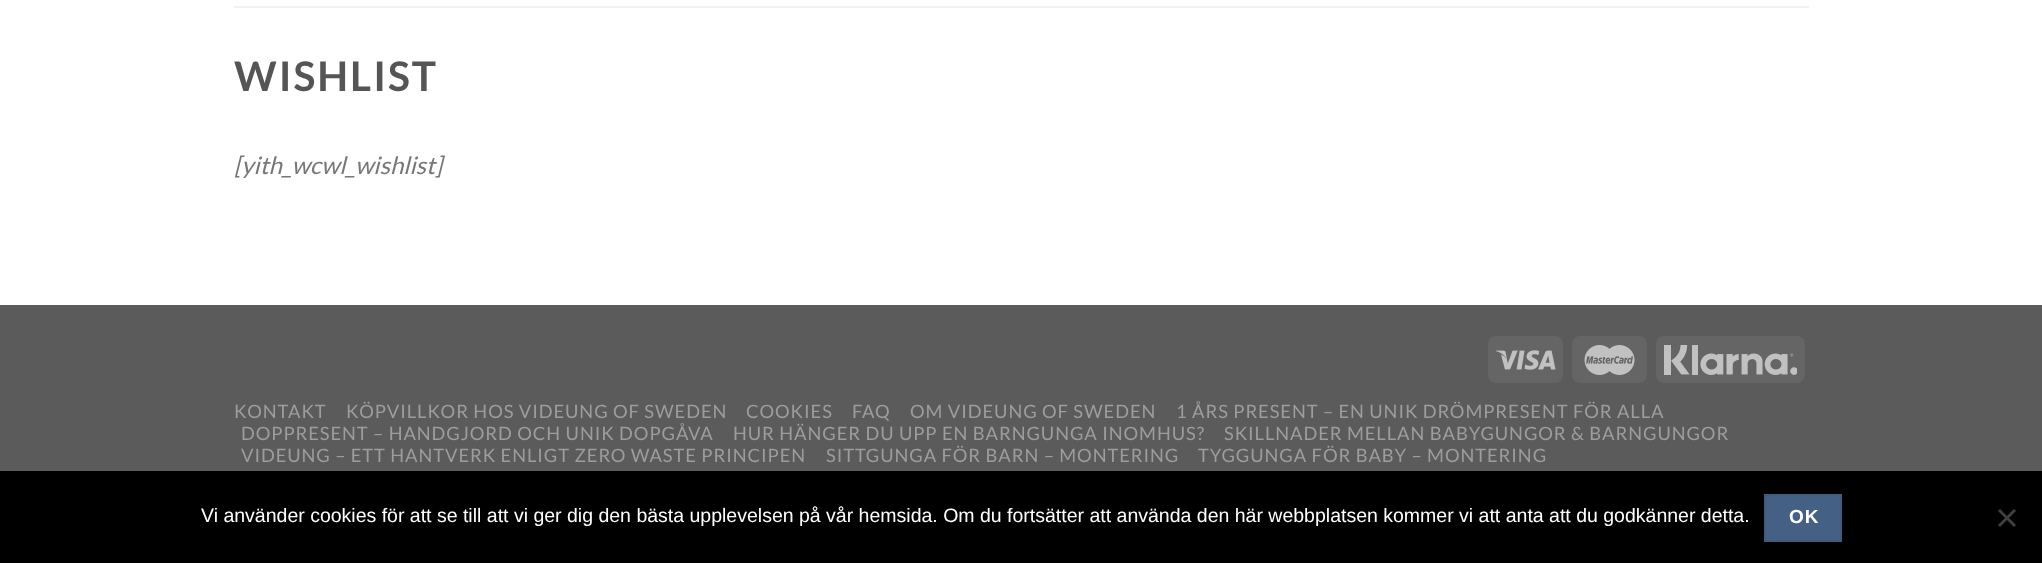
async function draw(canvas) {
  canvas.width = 2042;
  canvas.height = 563;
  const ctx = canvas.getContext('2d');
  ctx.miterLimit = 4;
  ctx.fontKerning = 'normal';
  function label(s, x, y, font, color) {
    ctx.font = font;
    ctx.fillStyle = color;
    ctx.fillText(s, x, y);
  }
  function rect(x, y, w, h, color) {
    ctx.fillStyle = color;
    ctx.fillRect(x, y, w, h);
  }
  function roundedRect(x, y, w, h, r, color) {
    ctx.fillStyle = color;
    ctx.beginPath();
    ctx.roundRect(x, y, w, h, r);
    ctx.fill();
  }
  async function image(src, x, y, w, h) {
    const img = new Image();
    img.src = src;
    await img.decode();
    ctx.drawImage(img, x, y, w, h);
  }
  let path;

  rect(0, 0, 2042, 563, '#fff');
  rect(234, 6, 1575, 2, '#f1f1f1');
  ctx.letterSpacing = '2px';
  label('WISHLIST', 234, 91, 'bold 40.75px Lato', '#555');
  ctx.letterSpacing = '0px';
  label('[yith_wcwl_wishlist]', 234, 174, 'italic 24px Lato', '#777');
  rect(0, 305, 2042, 166, '#5b5b5b');
  roundedRect(1488, 336, 75, 47, 8, '#656565');
  await image('assets/img1.png', 1496, 350, 60, 20);
  roundedRect(1572, 336, 75, 47, 8, '#656565');
  await image('assets/img2.png', 1584, 345, 51, 30);
  roundedRect(1656, 336, 149, 47, 8, '#656565');
  await image('assets/img3.png', 1664, 345, 133, 30);
  ctx.letterSpacing = '0.92px';
  label('KONTAKT', 234, 418, '18.35px Lato', '#9d9d9d');
  label('KÖPVILLKOR HOS VIDEUNG OF SWEDEN', 346, 418, '18.35px Lato', '#9d9d9d');
  label('COOKIES', 746, 418, '18.35px Lato', '#9d9d9d');
  label('FAQ', 852, 418, '18.35px Lato', '#9d9d9d');
  label('OM VIDEUNG OF SWEDEN', 910, 418, '18.35px Lato', '#9d9d9d');
  label('1 ÅRS PRESENT – EN UNIK DRÖMPRESENT FÖR ALLA', 1176, 418, '18.35px Lato', '#9d9d9d');
  label('DOPPRESENT – HANDGJORD OCH UNIK DOPGÅVA', 241, 440, '18.35px Lato', '#9d9d9d');
  label('HUR HÄNGER DU UPP EN BARNGUNGA INOMHUS?', 733, 440, '18.35px Lato', '#9d9d9d');
  label('SKILLNADER MELLAN BABYGUNGOR & BARNGUNGOR', 1224, 440, '18.35px Lato', '#9d9d9d');
  label('VIDEUNG – ETT HANTVERK ENLIGT ZERO WASTE PRINCIPEN', 241, 462, '18.35px Lato', '#9d9d9d');
  label('SITTGUNGA FÖR BARN – MONTERING', 826, 462, '18.35px Lato', '#9d9d9d');
  label('TYGGUNGA FÖR BABY – MONTERING', 1198, 462, '18.35px Lato', '#9d9d9d');
  rect(0, 471, 2042, 92, '#000');
  ctx.letterSpacing = '0px';
  label('Vi använder cookies för att se till att vi ger dig den bästa upplevelsen på vår hemsida. Om du fortsätter att använda den här webbplatsen kommer vi att anta att du godkänner detta.', 201, 522, '19.5px Liberation Sans', '#fff');
  ctx.fillStyle = '#446084';
  ctx.beginPath();
  ctx.rect(1765, 495, 76, 46);
  ctx.fill();
  ctx.strokeStyle = '#415b7d';
  ctx.lineWidth = 2;
  ctx.stroke();
  ctx.letterSpacing = '1px';
  label('OK', 1789, 523, 'bold 19px Liberation Sans', '#fff');
  ctx.fillStyle = '#404040';
  path = new Path2D('M2014 509L2016 511L2000 527L1998 525Z');
  ctx.fill(path);
  path = new Path2D('M1998 511L2000 509L2016 525L2014 527Z');
  ctx.fill(path);
}

draw(document.querySelector('canvas'));
